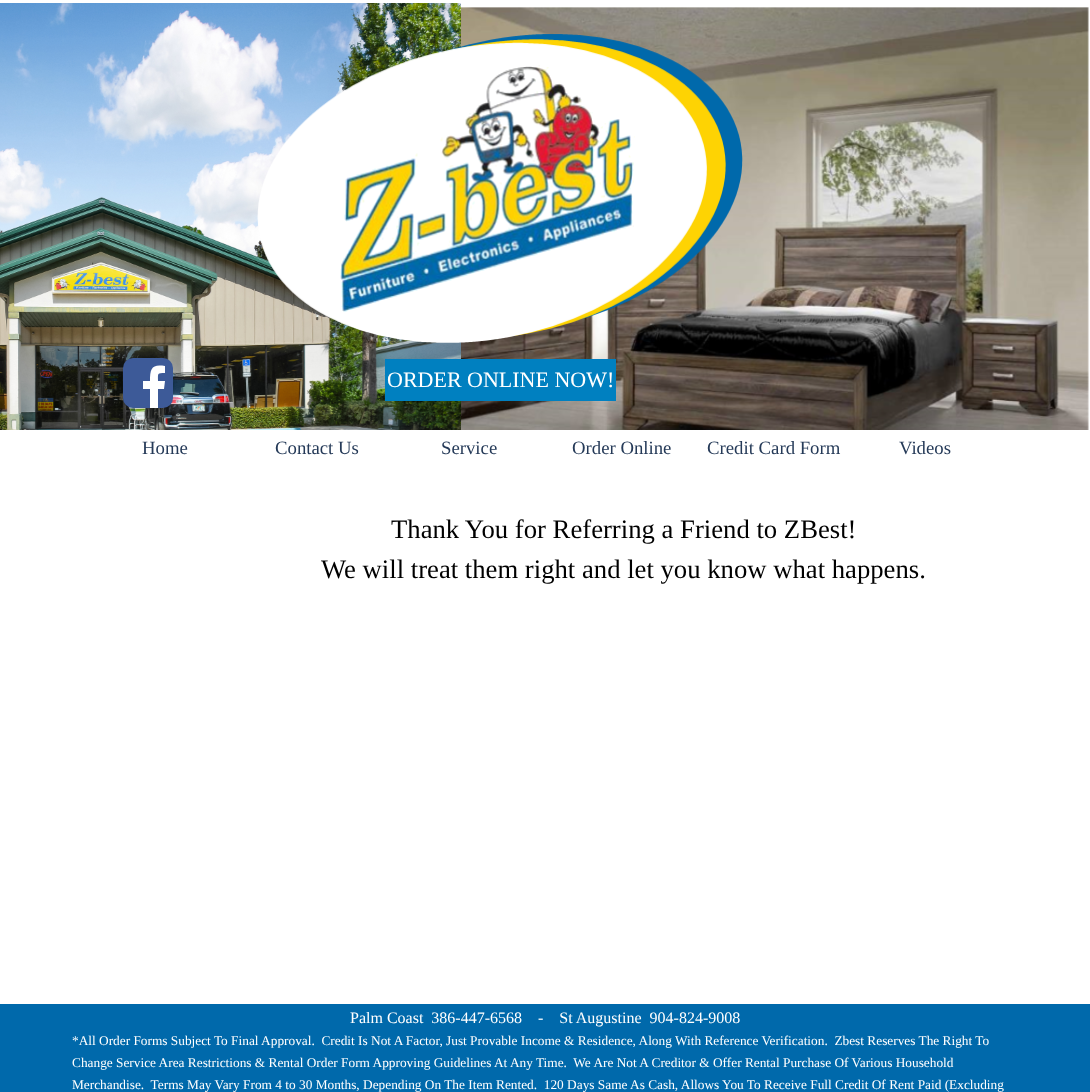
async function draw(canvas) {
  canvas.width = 1090;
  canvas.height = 1092;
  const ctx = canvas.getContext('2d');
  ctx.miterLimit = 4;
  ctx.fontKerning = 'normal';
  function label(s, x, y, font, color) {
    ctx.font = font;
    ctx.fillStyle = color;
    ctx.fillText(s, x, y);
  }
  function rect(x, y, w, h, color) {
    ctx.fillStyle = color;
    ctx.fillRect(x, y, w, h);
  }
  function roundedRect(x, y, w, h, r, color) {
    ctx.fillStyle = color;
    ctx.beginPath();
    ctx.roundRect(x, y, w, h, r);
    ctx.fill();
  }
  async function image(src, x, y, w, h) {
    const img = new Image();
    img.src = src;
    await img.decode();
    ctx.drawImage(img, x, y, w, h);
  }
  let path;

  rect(0, 0, 1090, 1092, '#fff');
  await image('assets/img1.png', 0, 3, 1089, 427);
  await image('assets/img2.png', 257, 34, 486, 309);
  roundedRect(123, 358, 50, 50, 10, '#3d5a98');
  ctx.fillStyle = '#fff';
  path = new Path2D('M158 408V389H164L165 381H158C158 373 157 373 165 373V366C152 364 150 368 150 381H143V389H150V408Z');
  ctx.fill(path);
  rect(385, 359, 231, 42, '#0080c0');
  label('ORDER ONLINE NOW!', 387, 387, '22px Liberation Serif', '#fff');
  label('Home', 142, 454, '18.75px Liberation Serif', '#253a58');
  label('Contact Us', 275, 454, '18.75px Liberation Serif', '#253a58');
  label('Service', 441, 454, '18.75px Liberation Serif', '#253a58');
  label('Order Online', 572, 454, '18.75px Liberation Serif', '#253a58');
  label('Credit Card Form', 707, 454, '18.75px Liberation Serif', '#253a58');
  label('Videos', 899, 454, '18.75px Liberation Serif', '#253a58');
  label('Thank You for Referring a Friend to ZBest!', 391, 538, '26.7px Liberation Serif', '#000');
  label('We will treat them right and let you know what happens.', 321, 578, '26.7px Liberation Serif', '#000');
  rect(0, 1004, 1090, 88, '#0069ab');
  label('Palm Coast  386-447-6568    -    St Augustine  904-824-9008', 350, 1023, '16px Liberation Serif', '#fff');
  label('*All Order Forms Subject To Final Approval.  Credit Is Not A Factor, Just Provable Income & Residence, Along With Reference Verification.  Zbest Reserves The Right To', 72, 1045, '13.33px Liberation Serif', '#fff');
  label('Change Service Area Restrictions & Rental Order Form Approving Guidelines At Any Time.  We Are Not A Creditor & Offer Rental Purchase Of Various Household', 72, 1067, '13.33px Liberation Serif', '#fff');
  label('Merchandise.  Terms May Vary From 4 to 30 Months, Depending On The Item Rented.  120 Days Same As Cash, Allows You To Receive Full Credit Of Rent Paid (Excluding', 72, 1089, '13.33px Liberation Serif', '#fff');
}

draw(document.querySelector('canvas'));
